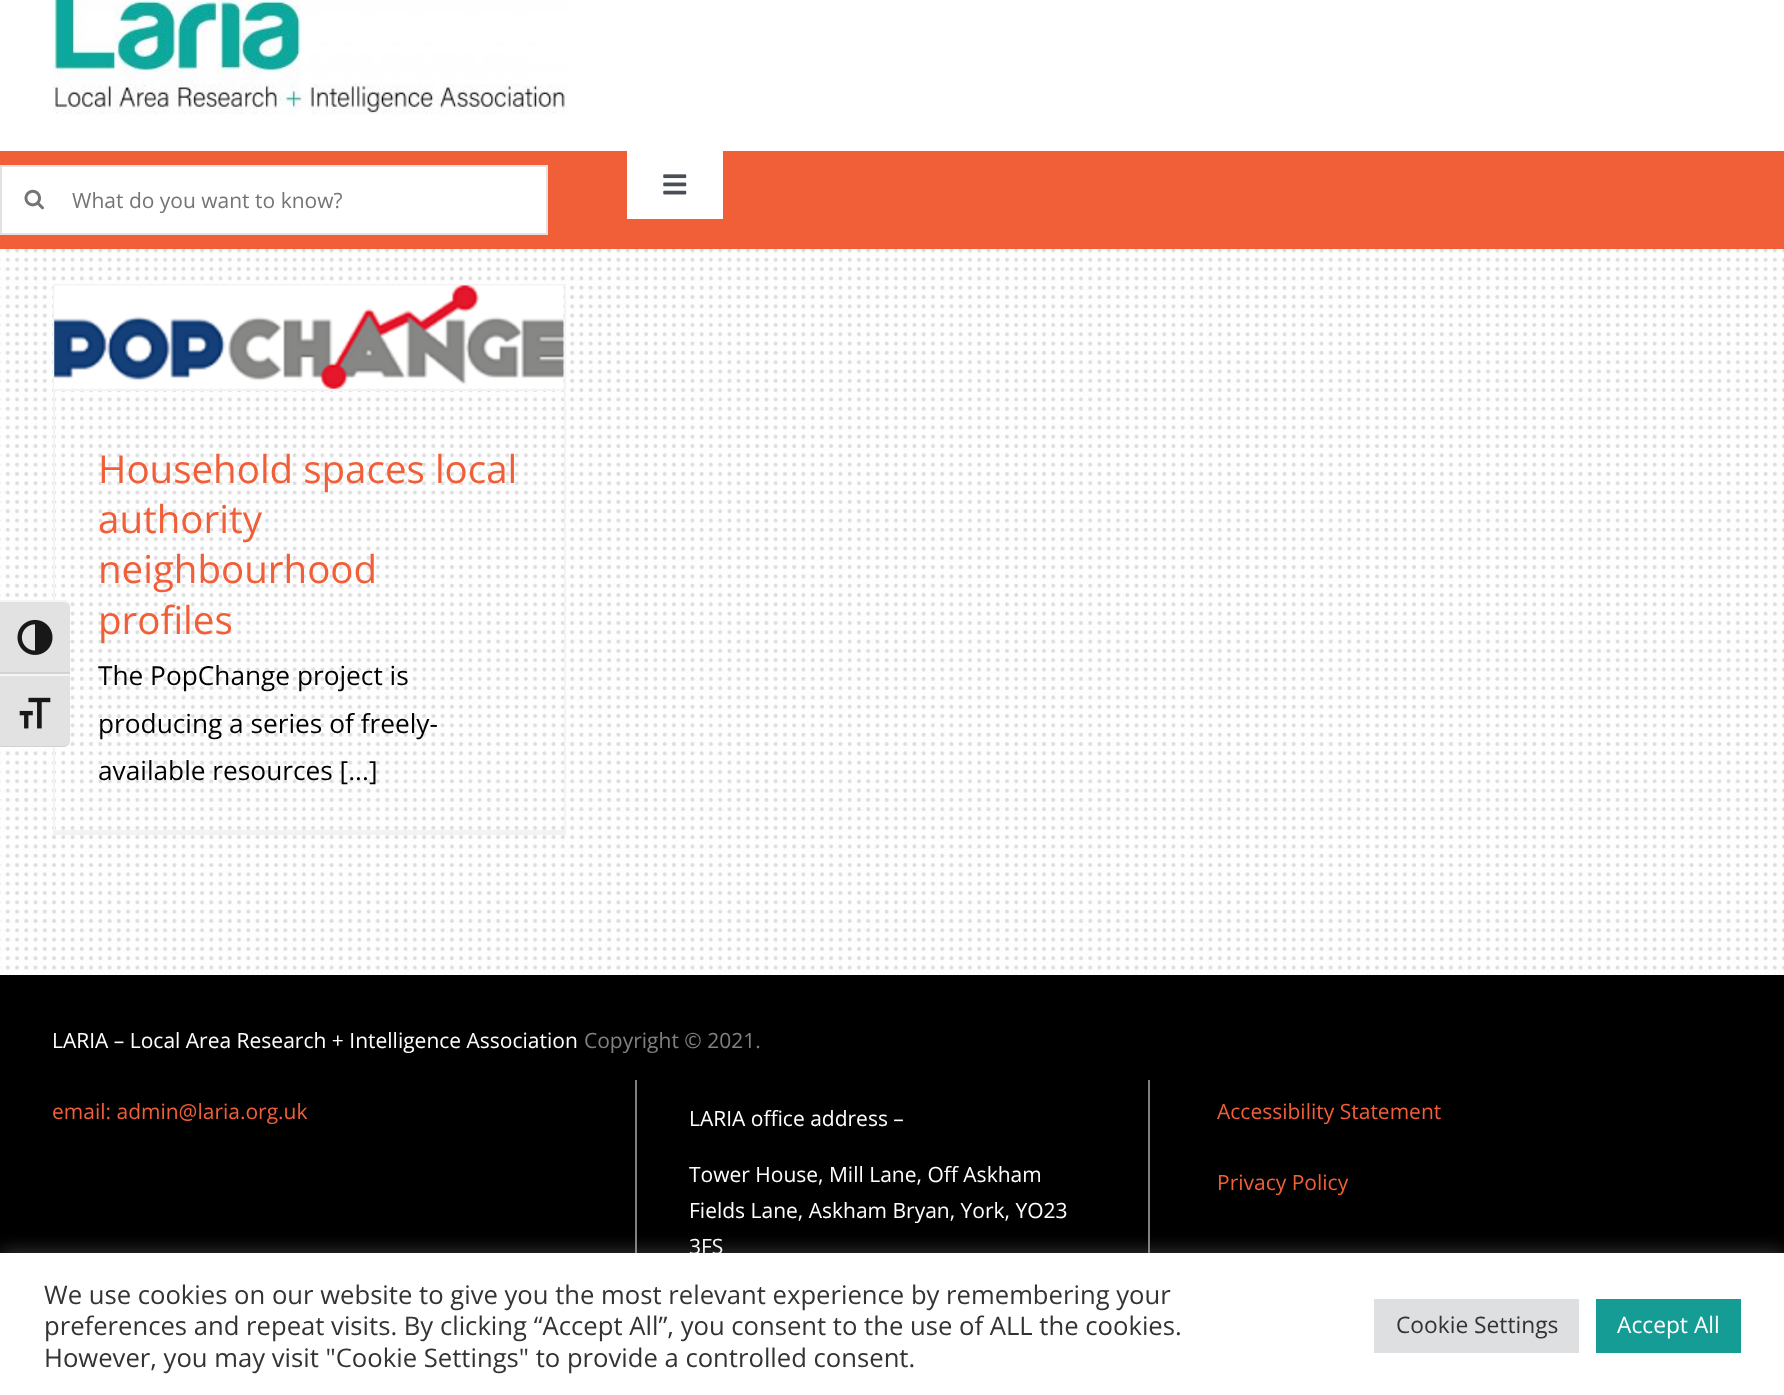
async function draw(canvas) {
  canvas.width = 1784;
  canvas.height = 1395;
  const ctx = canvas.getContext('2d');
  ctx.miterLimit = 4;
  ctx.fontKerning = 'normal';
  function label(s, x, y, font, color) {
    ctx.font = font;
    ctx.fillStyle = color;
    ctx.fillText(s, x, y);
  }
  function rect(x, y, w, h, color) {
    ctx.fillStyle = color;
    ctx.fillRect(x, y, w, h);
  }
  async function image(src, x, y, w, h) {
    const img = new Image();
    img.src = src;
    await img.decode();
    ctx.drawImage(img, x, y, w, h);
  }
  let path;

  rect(0, 0, 1784, 1395, '#fff');
  await image('assets/img6.png', 0, 249, 1784, 726);
  rect(53, 284, 512, 2, '#f2f3f5');
  rect(564, 284, 2, 551, '#f2f3f5');
  rect(53, 830, 512, 5, '#f2f3f5');
  rect(53, 284, 2, 551, '#f2f3f5');
  ctx.fillStyle = '#e2e2e2';
  ctx.beginPath();
  ctx.roundRect(0, 600, 70, 74, [0, 7, 0, 0]);
  ctx.fill();
  ctx.fillStyle = '#f5f5f5';
  path = new Path2D('M0 602H63C67 602 70 604 70 607C70 604 68 601 65 600H0Z');
  ctx.fill(path);
  rect(0, 672, 70, 2, '#d2d2d2');
  await image('assets/img1.png', 17, 619, 36, 36);
  ctx.fillStyle = '#e2e2e2';
  ctx.beginPath();
  ctx.roundRect(0, 674, 70, 73, [0, 0, 7, 0]);
  ctx.fill();
  rect(0, 674, 70, 2, '#f5f5f5');
  ctx.fillStyle = '#d2d2d2';
  path = new Path2D('M0 746V747H63C67 747 70 744 70 740C70 743 67 746 63 746Z');
  ctx.fill(path);
  await image('assets/img2.png', 19, 697, 32, 32);
  await image('assets/img3.png', 52, 0, 515, 115);
  rect(0, 151, 1784, 98, '#f15f38');
  ctx.fillStyle = '#fff';
  ctx.beginPath();
  ctx.rect(1, 166, 546, 68);
  ctx.fill();
  ctx.strokeStyle = '#e2e2e2';
  ctx.lineWidth = 2;
  ctx.stroke();
  await image('assets/img4.png', 24, 189, 20, 21);
  label('What do you want to know?', 72, 208, '21px Open Sans', '#757575');
  rect(627, 151, 96, 68, '#fff');
  await image('assets/img5.png', 663, 174, 24, 21);
  rect(54, 389, 510, 2, '#f2f3f5');
  await image('assets/img7.png', 54, 285, 510, 104);
  label('Household spaces local', 98, 483, '38.5px Open Sans', '#f15f38');
  label('authority', 98, 533, '38.5px Open Sans', '#f15f38');
  label('neighbourhood', 98, 583, '38.5px Open Sans', '#f15f38');
  label('profiles', 98, 634, '38.5px Open Sans', '#f15f38');
  label('The PopChange project is', 98, 685, '26.25px Open Sans', '#000');
  label('producing a series of freely-', 98, 733, '26.25px Open Sans', '#000');
  label('available resources [...]', 98, 780, '26.25px Open Sans', '#000');
  rect(0, 975, 1784, 278, '#000');
  label('LARIA – Local Area Research + Intelligence Association', 52, 1048, '21px Open Sans', '#fff');
  label('Copyright © 2021.', 584, 1048, '21px Open Sans', '#808080');
  label('email: admin@laria.org.uk', 52, 1119, '21px Open Sans', '#f15f38');
  rect(1148, 1080, 2, 173, '#808080');
  rect(635, 1080, 2, 173, '#808080');
  label('LARIA office address –', 689, 1126, '21px Open Sans', '#fff');
  label('Tower House, Mill Lane, Off Askham', 689, 1182, '21px Open Sans', '#fff');
  label('Fields Lane, Askham Bryan, York, YO23', 689, 1218, '21px Open Sans', '#fff');
  label('3FS', 689, 1254, '21px Open Sans', '#fff');
  label('Accessibility Statement', 1217, 1119, '21px Open Sans', '#f15f38');
  label('Privacy Policy', 1217, 1190, '21px Open Sans', '#f15f38');
  ctx.fillStyle = '#acabab4d';
  ctx.filter = 'blur(9px)';
  ctx.beginPath();
  ctx.rect(0, 1251, 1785, 144);
  ctx.fill();
  ctx.filter = 'none';
  rect(0, 1253, 1784, 142, '#fff');
  label('We use cookies on our website to give you the most relevant experience by remembering your', 44, 1304, '25.65px Open Sans', '#333');
  label('preferences and repeat visits. By clicking “Accept All”, you consent to the use of ALL the cookies.', 44, 1335, '25.65px Open Sans', '#333');
  label('However, you may visit "Cookie Settings" to provide a controlled consent.', 44, 1367, '25.65px Open Sans', '#333');
  rect(1374, 1299, 205, 54, '#dedfe0');
  label('Cookie Settings', 1396, 1333, '22.75px Open Sans', '#333');
  rect(1596, 1299, 145, 54, '#159c95');
  label('Accept All', 1617, 1333, '22.75px Open Sans', '#fff');
}

draw(document.querySelector('canvas'));
